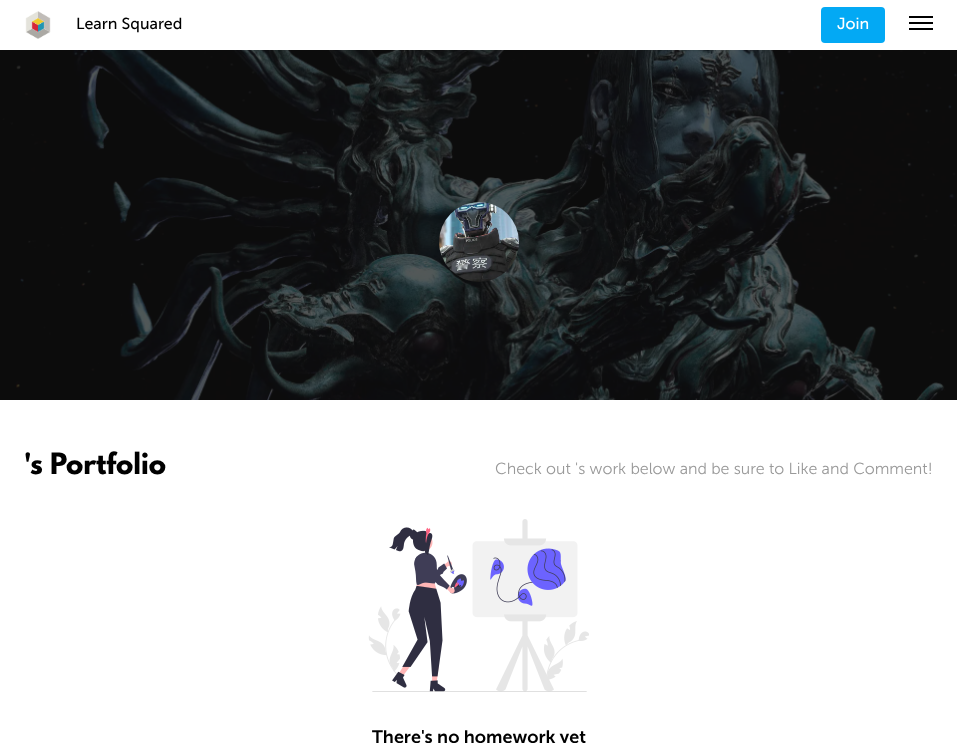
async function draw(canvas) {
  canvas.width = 957;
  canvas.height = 743;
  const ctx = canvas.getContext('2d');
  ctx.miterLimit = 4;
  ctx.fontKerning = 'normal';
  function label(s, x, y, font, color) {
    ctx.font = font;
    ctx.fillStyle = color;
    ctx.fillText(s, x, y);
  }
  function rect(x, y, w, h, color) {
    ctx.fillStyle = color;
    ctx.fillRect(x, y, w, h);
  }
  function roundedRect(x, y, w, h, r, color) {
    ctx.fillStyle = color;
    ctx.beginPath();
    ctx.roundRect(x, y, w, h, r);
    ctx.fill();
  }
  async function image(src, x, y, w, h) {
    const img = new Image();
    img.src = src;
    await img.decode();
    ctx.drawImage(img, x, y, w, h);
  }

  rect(0, 0, 957, 743, '#fff');
  await image('assets/img1.png', 25, 11, 26, 28);
  label('Learn Squared', 76, 29, '16px Museo Sans', '#000');
  roundedRect(821, 7, 64, 36, 4, '#03a9f4');
  label('Join', 837, 29, '16px Museo Sans', '#fff');
  rect(909, 16, 24, 2, '#000');
  rect(909, 22, 24, 2, '#000');
  rect(909, 28, 24, 2, '#000');
  await image('assets/img2.png', 0, 50, 957, 350);
  await image('assets/img3.png', 439, 202, 80, 80);
  label('\'s Portfolio', 24, 474, 'bold 26px League Spartan', '#000');
  label('Check out \'s work below and be sure to Like and Comment!', 495, 474, '300 16px Museo Sans', '#999');
  await image('assets/img4.png', 368, 519, 221, 173);
  label('There\'s no homework yet', 372, 743, '600 18px Museo Sans', '#000');
}

draw(document.querySelector('canvas'));
